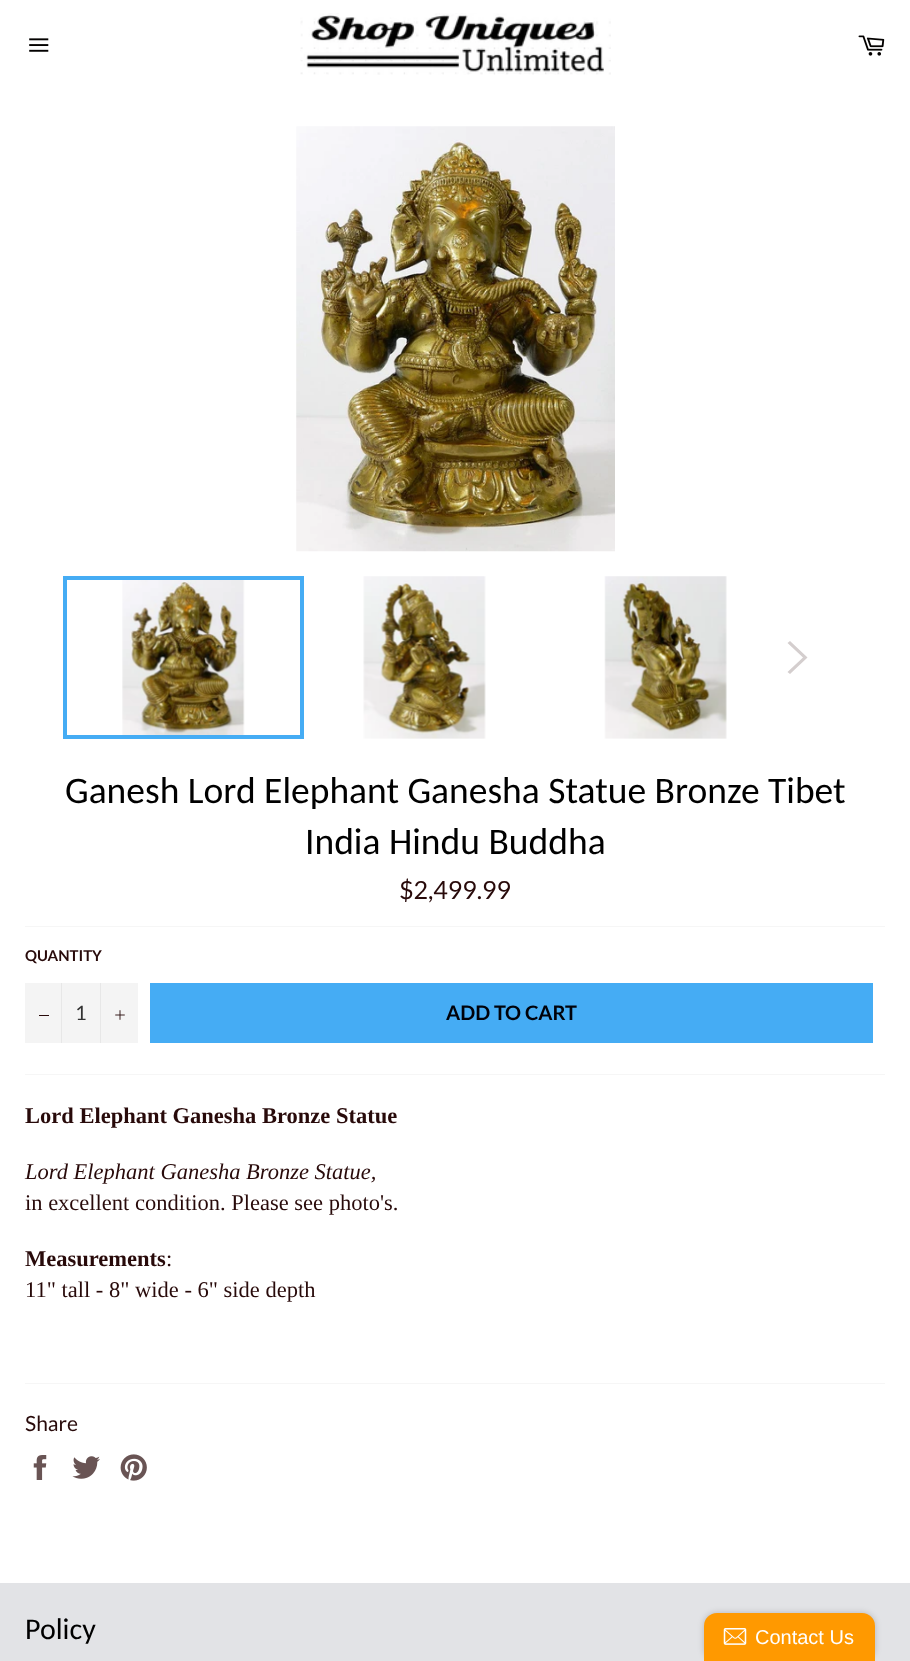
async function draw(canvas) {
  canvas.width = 910;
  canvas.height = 1661;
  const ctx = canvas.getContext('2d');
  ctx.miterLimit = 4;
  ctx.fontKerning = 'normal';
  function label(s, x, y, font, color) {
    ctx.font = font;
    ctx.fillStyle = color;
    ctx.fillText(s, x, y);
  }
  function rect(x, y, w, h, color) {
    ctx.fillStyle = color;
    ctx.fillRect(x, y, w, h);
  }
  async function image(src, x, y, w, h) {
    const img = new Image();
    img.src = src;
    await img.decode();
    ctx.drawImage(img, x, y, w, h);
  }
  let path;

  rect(0, 0, 910, 1661, '#fff');
  await image('assets/img1.png', 29, 38, 20, 14);
  await image('assets/img2.png', 300, 13, 311, 62);
  await image('assets/img3.png', 858, 35, 27, 21);
  await image('assets/img4.png', 296, 126, 319, 426);
  await image('assets/img5.png', 122, 580, 123, 155);
  ctx.strokeStyle = '#45acf4';
  ctx.lineWidth = 4;
  ctx.strokeRect(65, 578, 237, 159);
  await image('assets/img6.png', 363, 576, 123, 163);
  await image('assets/img7.png', 604, 576, 123, 163);
  ctx.fillStyle = '#d4cece';
  path = new Path2D('M787.5 643L790 641L807.5 657.5L790 674L787.5 672L803 657.5Z');
  ctx.fill(path);
  label('Ganesh Lord Elephant Ganesha Statue Bronze Tibet', 65, 803, '37.5px Carlito', '#000');
  label('India Hindu Buddha', 305, 854, '37.5px Carlito', '#000');
  label('$2,499.99', 399, 899, '25px Lato', '#280a0a');
  rect(25, 926, 860, 1, '#f6f6f6');
  label('QUANTITY', 25, 961, 'bold 15px Lato', '#280a0a');
  rect(25, 983, 113, 60, '#f4f4f4');
  rect(61, 983, 1, 60, '#e7e7e7');
  rect(39, 1015, 10, 1, '#280a0a');
  label('1', 75, 1020, '20px Lato', '#333');
  rect(100, 983, 1, 60, '#e7e7e7');
  await image('assets/img8.png', 115, 1010, 10, 10);
  rect(150, 983, 723, 60, '#45acf4');
  label('ADD TO CART', 446, 1020, 'bold 20px Lato', '#00020a');
  rect(25, 1074, 860, 1, '#f6f6f6');
  label('Lord Elephant Ganesha Bronze Statue', 25, 1123, 'bold 22.5px Liberation Serif', '#280a0a');
  label('Lord Elephant Ganesha Bronze Statue,', 25, 1179, 'italic 22.5px Liberation Serif', '#280a0a');
  label('in excellent condition. Please see photo\'s.', 25, 1210, '22.5px Liberation Serif', '#280a0a');
  label('Measurements', 25, 1266, 'bold 22.5px Liberation Serif', '#280a0a');
  label(':', 166, 1266, '22.5px Liberation Serif', '#280a0a');
  label('11" tall - 8" wide - 6" side depth', 25, 1297, '22.5px Liberation Serif', '#280a0a');
  rect(25, 1383, 860, 1, '#f6f6f6');
  label('Share', 25, 1431, '21px Lato', '#280a0a');
  await image('assets/img9.png', 33, 1455, 14, 25);
  await image('assets/img10.png', 72, 1456, 28, 23);
  await image('assets/img11.png', 120, 1454, 27, 27);
  rect(0, 1583, 910, 78, '#e2e3e6');
  label('Policy', 25, 1639, '30px Carlito', '#000');
  ctx.fillStyle = '#00000033';
  ctx.filter = 'blur(3px)';
  ctx.beginPath();
  ctx.roundRect(704, 1613, 171, 48, 13);
  ctx.fill();
  ctx.filter = 'none';
  ctx.fillStyle = '#f90';
  ctx.beginPath();
  ctx.roundRect(704, 1613, 171, 48, [13, 13, 0, 0]);
  ctx.fill();
  await image('assets/img12.png', 723, 1628, 24, 17);
  label('Contact Us', 755, 1644, '20px Liberation Sans', '#fff');
}

draw(document.querySelector('canvas'));
